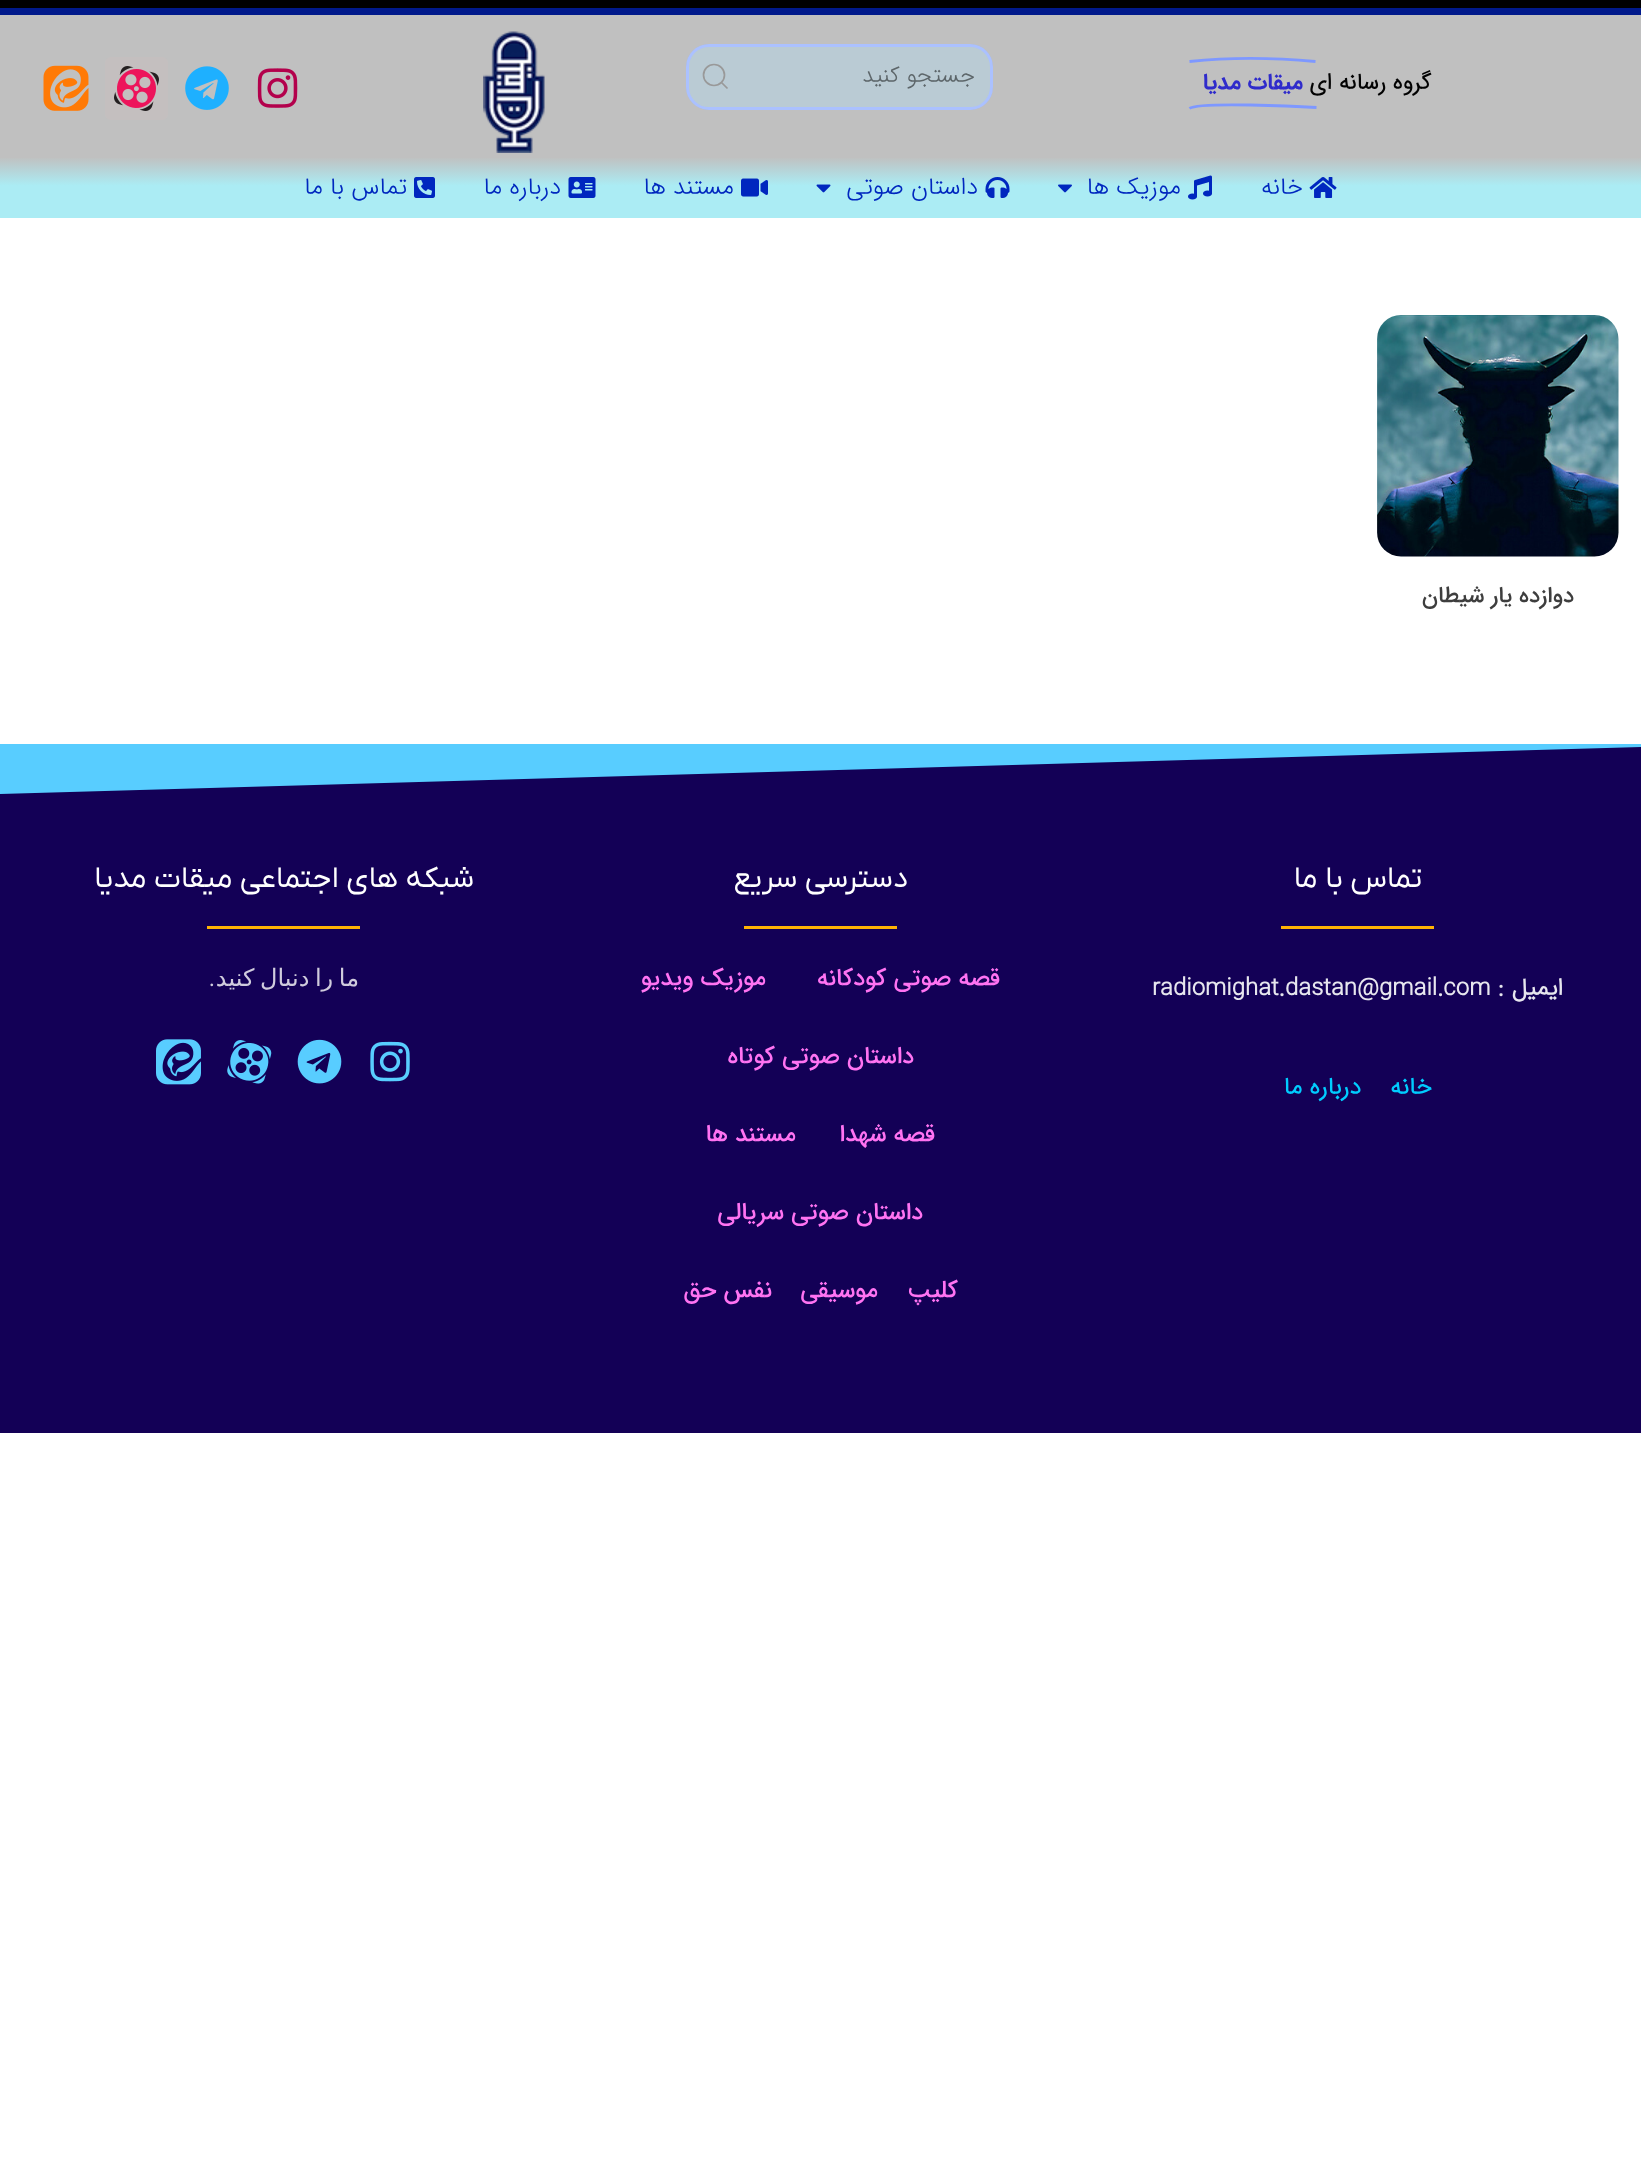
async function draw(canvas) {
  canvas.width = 1641;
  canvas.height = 2174;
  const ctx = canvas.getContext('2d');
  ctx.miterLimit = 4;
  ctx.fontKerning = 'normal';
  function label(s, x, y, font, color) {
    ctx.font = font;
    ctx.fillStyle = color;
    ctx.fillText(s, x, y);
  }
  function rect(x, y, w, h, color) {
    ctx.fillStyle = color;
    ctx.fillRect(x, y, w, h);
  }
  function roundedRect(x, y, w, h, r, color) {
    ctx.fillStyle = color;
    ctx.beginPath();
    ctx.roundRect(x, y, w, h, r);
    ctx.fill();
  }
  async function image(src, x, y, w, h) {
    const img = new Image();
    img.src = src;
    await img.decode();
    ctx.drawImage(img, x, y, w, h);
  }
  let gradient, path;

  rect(0, 0, 1641, 2174, '#fff');
  rect(0, 8, 1641, 7, '#00198b');
  rect(0, 15, 1641, 143, '#c0c0c0');
  rect(0, 0, 1641, 8, '#000');
  ctx.direction = 'rtl';
  label('گروه رسانه ای', 1431, 89, 'bold 22.5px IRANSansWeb', '#020202');
  path = new Path2D('M1189.5 108.5C1198 101.5 1301 106.5 1316.5 107.5');
  ctx.strokeStyle = '#7e98ff';
  ctx.lineWidth = 2.8;
  ctx.stroke(path);
  path = new Path2D('M1189.5 61.5C1231 57 1273.5 57.5 1315.5 61.5');
  ctx.stroke(path);
  label('میقات مدیا', 1303, 89, 'bold 22.5px "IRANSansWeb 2"', '#2f2bcb');
  ctx.save();
  ctx.beginPath();
  ctx.roundRect(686, 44, 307, 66, 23);
  ctx.clip();
  ctx.fillStyle = '#0000001a';
  ctx.filter = 'blur(7.5px)';
  ctx.beginPath();
  ctx.roundRect(686, 44, 307, 66, 23);
  ctx.fill();
  ctx.filter = 'none';
  ctx.restore();
  ctx.fillStyle = '#bacbd4';
  ctx.beginPath();
  ctx.roundRect(687.5, 45.5, 304, 63, 21.5);
  ctx.fill();
  ctx.strokeStyle = '#abc1ff';
  ctx.lineWidth = 3;
  ctx.stroke();
  label('جستجو کنید', 975, 82, '300 22.5px IRANSansWeb', '#5d666a');
  ctx.beginPath();
  ctx.arc(714, 75, 10.5, 0, 2 * Math.PI);
  ctx.strokeStyle = '#999';
  ctx.lineWidth = 1.7;
  ctx.stroke();
  path = new Path2D('M721.5 82.5L727.5 88.5Z');
  ctx.stroke(path);
  await image('assets/img1.png', 483, 31, 62, 122);
  await image('assets/img2.png', 257, 68, 41, 40);
  await image('assets/img3.png', 185, 66, 44, 44);
  roundedRect(105, 57, 63, 63, 6, '#c4bfbf');
  await image('assets/img4.png', 114, 66, 45, 45);
  await image('assets/img5.png', 43, 65, 46, 46);
  gradient = ctx.createLinearGradient(821, 157, 821, 218);
  gradient.addColorStop(0, '#c0c0c0');
  gradient.addColorStop(0.47, '#abecf4');
  ctx.fillStyle = gradient;
  ctx.fillRect(0, 158, 1641, 60);
  await image('assets/img6.png', 1309, 177, 28, 21);
  label('خانه', 1303, 194, '300 24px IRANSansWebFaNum', '#0027bf');
  await image('assets/img7.png', 1188, 175, 24, 25);
  label('موزیک ها', 1181, 194, '300 24px IRANSansWebFaNum', '#0027bf');
  await image('assets/img8.png', 1058, 184, 14, 9);
  await image('assets/img9.png', 985, 177, 25, 21);
  label('داستان صوتی', 978, 194, '300 24px IRANSansWebFaNum', '#0027bf');
  await image('assets/img10.png', 816, 184, 15, 9);
  await image('assets/img11.png', 741, 178, 27, 19);
  label('مستند ها', 734, 194, '300 24px IRANSansWebFaNum', '#0027bf');
  await image('assets/img12.png', 568, 177, 28, 21);
  label('درباره ما', 561, 194, '300 24px IRANSansWebFaNum', '#0027bf');
  await image('assets/img13.png', 414, 177, 21, 21);
  label('تماس با ما', 407, 194, '300 24px IRANSansWebFaNum', '#0027bf');
  await image('assets/img14.png', 1377, 315, 242, 242);
  label('دوازده يار شيطان', 1574, 602, '500 22.5px IRANSansWeb', '#3e3e3e');
  rect(0, 747, 1641, 686, '#130056');
  ctx.fillStyle = '#58cdff';
  path = new Path2D('M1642 747V744H-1V794Z');
  ctx.fill(path);
  label('تماس با ما', 1422, 887, '30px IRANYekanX', '#fff');
  rect(1281, 926, 153, 3, '#ffb204');
  label('ایمیل :', 1563, 995, 'bold 24px IRANSansWeb', '#e7e6ee');
  ctx.direction = 'ltr';
  label('radiomighat.dastan@gmail.com', 1152, 995, 'bold 24px IRANSansWeb', '#e7e6ee');
  ctx.direction = 'rtl';
  label('خانه', 1432, 1094, 'bold 24px IRANSansWeb', '#0cf');
  label('درباره ما', 1361, 1094, 'bold 24px IRANSansWeb', '#0cf');
  label('دسترسی سریع', 908, 887, '30px IRANYekanX', '#fff');
  rect(744, 926, 153, 3, '#ffb204');
  label('قصه صوتی کودکانه', 1000, 985, '500 24px IRANSansWeb', '#ff73f2');
  label('موزیک ویدیو', 766, 985, '500 24px IRANSansWeb', '#ff73f2');
  label('داستان صوتی کوتاه', 914, 1063, '500 24px IRANSansWeb', '#ff73f2');
  label('قصه شهدا', 935, 1141, '500 24px IRANSansWeb', '#ff73f2');
  label('مستند ها', 796, 1141, '500 24px IRANSansWeb', '#ff73f2');
  label('داستان صوتی سریالی', 923, 1219, '500 24px IRANSansWeb', '#ff73f2');
  label('کلیپ', 958, 1297, '500 24px IRANSansWeb', '#ff73f2');
  label('موسیقی', 878, 1297, '500 24px IRANSansWeb', '#ff73f2');
  label('نفس حق', 772, 1297, '500 24px IRANSansWeb', '#ff73f2');
  label('شبکه های اجتماعی میقات مدیا', 474, 887, '30px IRANYekanX', '#fff');
  rect(207, 926, 153, 3, '#ffb204');
  ctx.wordSpacing = '-2px';
  label('ما را دنبال کنید', 359, 986, '24px DejaVu Sans', '#d0ccdd');
  ctx.wordSpacing = '0px';
  label('.', 215, 986, '24px Roboto', '#d0ccdd');
  await image('assets/img15.png', 370, 1041, 40, 41);
  await image('assets/img16.png', 297, 1039, 45, 45);
  await image('assets/img17.png', 227, 1040, 45, 44);
  await image('assets/img18.png', 156, 1039, 45, 46);
}

draw(document.querySelector('canvas'));
